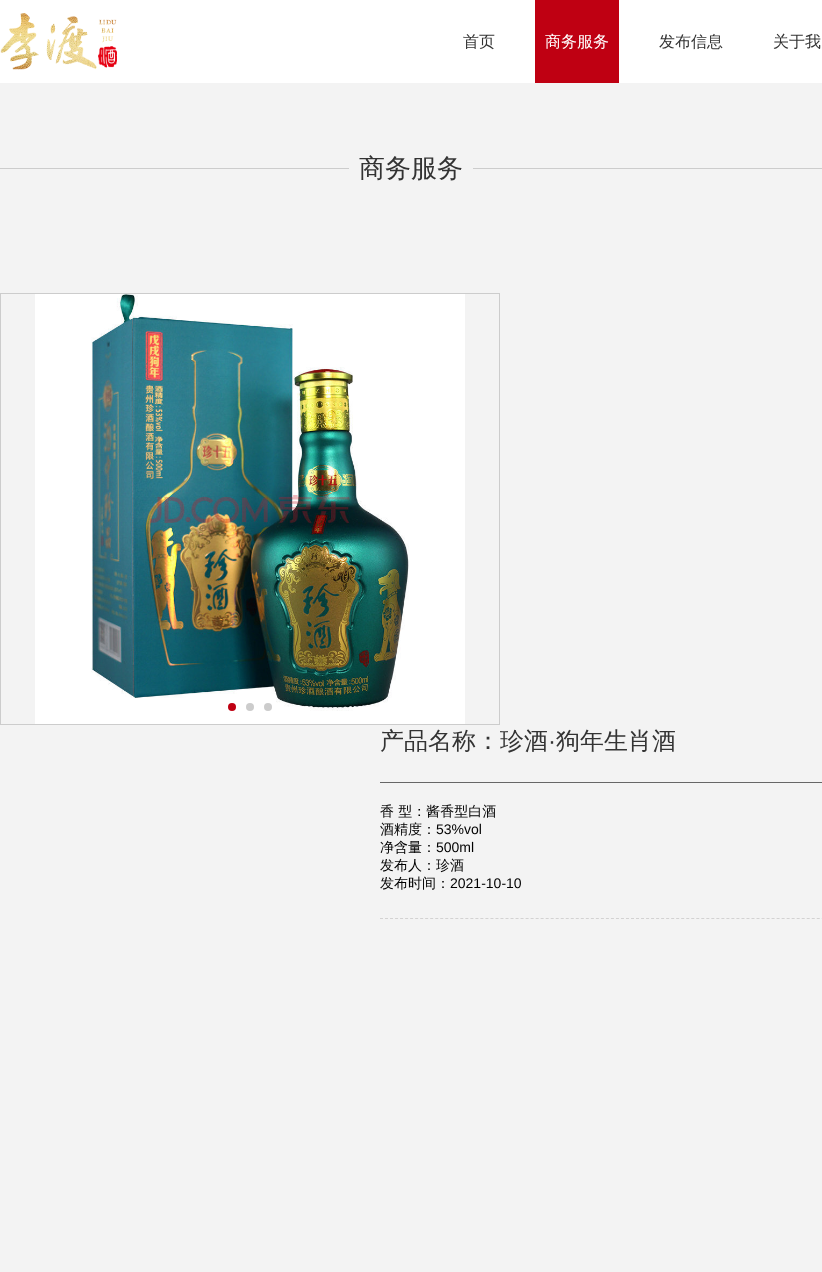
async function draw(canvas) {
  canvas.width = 822;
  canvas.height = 1272;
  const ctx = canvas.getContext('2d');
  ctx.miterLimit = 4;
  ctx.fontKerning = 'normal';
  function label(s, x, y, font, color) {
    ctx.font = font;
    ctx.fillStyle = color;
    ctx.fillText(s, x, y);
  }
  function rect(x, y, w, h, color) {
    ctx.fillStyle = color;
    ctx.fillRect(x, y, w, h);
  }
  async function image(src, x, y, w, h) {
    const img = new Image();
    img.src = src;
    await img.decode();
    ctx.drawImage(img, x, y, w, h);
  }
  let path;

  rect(0, 0, 822, 1272, '#f3f3f3');
  rect(0, 0, 822, 83, '#fff');
  await image('assets/img1.png', 0, 13, 117, 57);
  label('首页', 463, 47, '500 16px WenQuanYi Zen Hei', '#333');
  rect(535, 0, 84, 83, '#bf0012');
  label('商务服务', 545, 47, '500 16px WenQuanYi Zen Hei', '#fff');
  label('发布信息', 659, 47, '500 16px WenQuanYi Zen Hei', '#333');
  label('关于我', 773, 47, '500 16px WenQuanYi Zen Hei', '#333');
  rect(0, 168, 822, 1, '#ccc');
  rect(349, 168, 124, 1, '#f3f3f3');
  label('商务服务', 359, 177, '500 26px WenQuanYi Zen Hei', '#333');
  ctx.strokeStyle = '#ccc';
  ctx.strokeRect(0.5, 293.5, 499, 431);
  await image('assets/img2.png', 35, 294, 430, 430);
  ctx.fillStyle = '#bf0012';
  ctx.beginPath();
  ctx.arc(232, 707, 4, 0, 2 * Math.PI);
  ctx.fill();
  ctx.fillStyle = '#ccc';
  ctx.beginPath();
  ctx.arc(250, 707, 4, 0, 2 * Math.PI);
  ctx.fill();
  ctx.beginPath();
  ctx.arc(268, 707, 4, 0, 2 * Math.PI);
  ctx.fill();
  rect(380, 782, 442, 1, '#666');
  label('产品名称：珍酒', 380, 749, '500 24px WenQuanYi Zen Hei', '#333');
  label('·', 548, 749, '24px Liberation Sans', '#333');
  label('狗年生肖酒', 556, 749, '500 24px WenQuanYi Zen Hei', '#333');
  path = new Path2D('M380 918.5H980');
  ctx.strokeStyle = '#d3d2d2';
  ctx.setLineDash([3, 2.02]);
  ctx.stroke(path);
  label('香 型：酱香型白酒', 380, 816, '500 14px WenQuanYi Zen Hei', '#000');
  label('酒精度：', 380, 834, '500 14px WenQuanYi Zen Hei', '#000');
  label('53%vol', 436, 834, '14px Liberation Sans', '#000');
  label('净含量：', 380, 852, '500 14px WenQuanYi Zen Hei', '#000');
  label('500ml', 436, 852, '14px Liberation Sans', '#000');
  label('发布人：珍酒', 380, 870, '500 14px WenQuanYi Zen Hei', '#000');
  label('发布时间：', 380, 888, '500 14px WenQuanYi Zen Hei', '#000');
  label('2021-10-10', 450, 888, '14px Liberation Sans', '#000');
}

draw(document.querySelector('canvas'));
